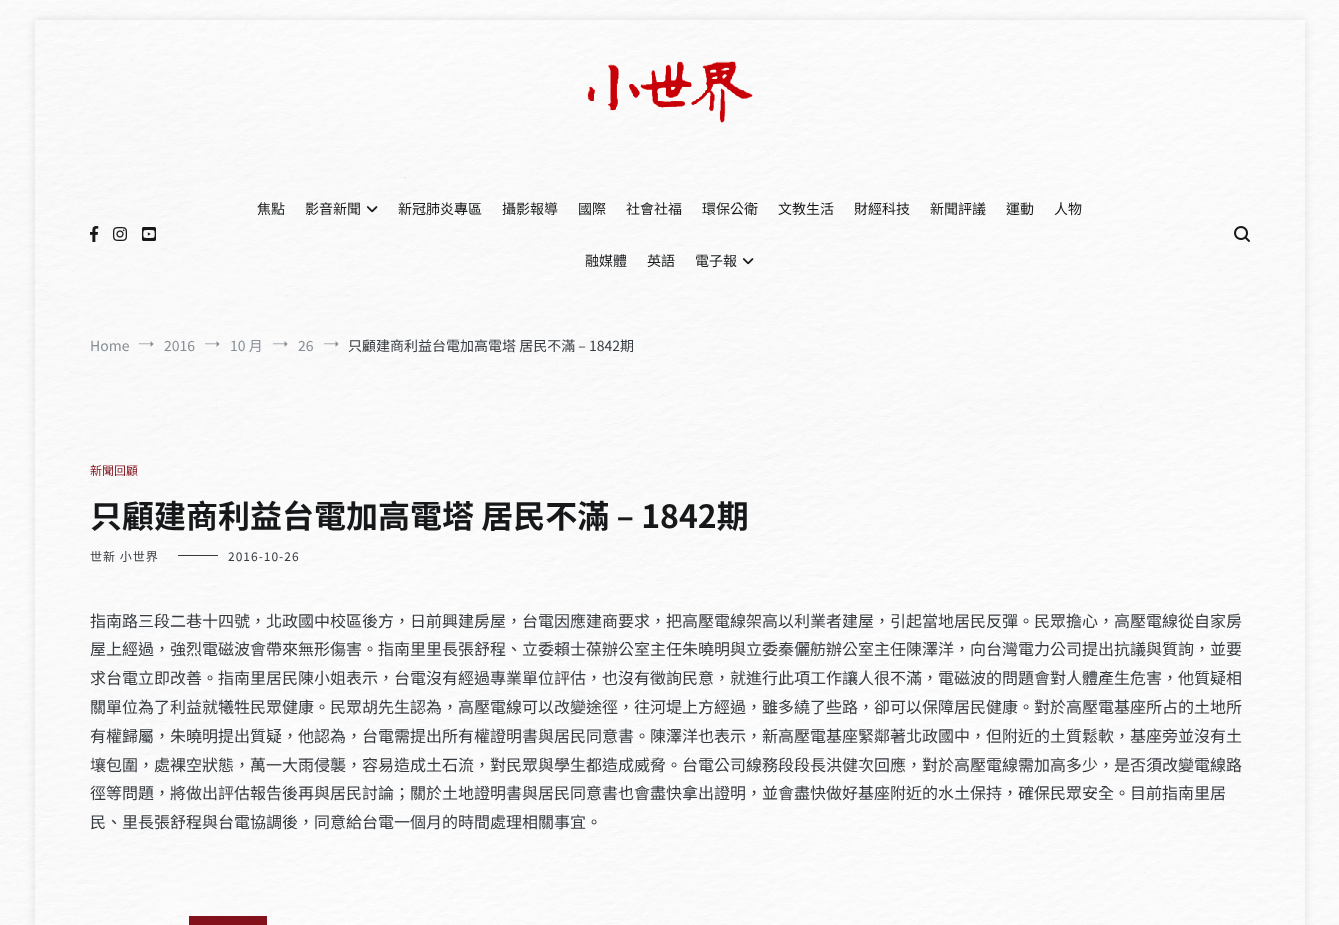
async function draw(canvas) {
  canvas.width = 1339;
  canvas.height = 925;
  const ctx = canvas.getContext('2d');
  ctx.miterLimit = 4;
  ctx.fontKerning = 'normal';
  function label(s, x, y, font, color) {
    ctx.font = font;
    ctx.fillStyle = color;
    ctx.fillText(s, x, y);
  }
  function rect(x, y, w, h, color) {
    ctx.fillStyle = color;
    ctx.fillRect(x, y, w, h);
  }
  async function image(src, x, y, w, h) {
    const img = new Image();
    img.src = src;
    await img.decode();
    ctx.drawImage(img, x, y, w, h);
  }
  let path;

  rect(0, 0, 1339, 925, '#fff');
  await image('assets/img1.png', 0, 0, 1339, 925);
  ctx.save();
  path = new Path2D('M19 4H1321V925H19ZM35 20H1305V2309H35Z');
  ctx.clip(path, 'evenodd');
  ctx.fillStyle = '#0000001a';
  ctx.filter = 'blur(5px)';
  ctx.beginPath();
  ctx.rect(35, 20, 1270, 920);
  ctx.fill();
  ctx.filter = 'none';
  ctx.restore();
  await image('assets/img2.png', 587, 61, 166, 62);
  await image('assets/img3.png', 90, 226, 9, 16);
  await image('assets/img4.png', 113, 227, 14, 14);
  await image('assets/img5.png', 142, 227, 14, 14);
  label('焦點', 257, 214, '14px Noto Sans TC', '#16181a');
  label('影音新聞', 305, 214, '14px Noto Sans TC', '#16181a');
  await image('assets/img6.png', 367, 206, 11, 7);
  label('新冠肺炎專區', 398, 214, '14px Noto Sans TC', '#16181a');
  label('攝影報導', 502, 214, '14px Noto Sans TC', '#16181a');
  label('國際', 578, 214, '14px Noto Sans TC', '#16181a');
  label('社會社福', 626, 214, '14px Noto Sans TC', '#16181a');
  label('環保公衛', 702, 214, '14px Noto Sans TC', '#16181a');
  label('文教生活', 778, 214, '14px Noto Sans TC', '#16181a');
  label('財經科技', 854, 214, '14px Noto Sans TC', '#16181a');
  label('新聞評議', 930, 214, '14px Noto Sans TC', '#16181a');
  label('運動', 1006, 214, '14px Noto Sans TC', '#16181a');
  label('人物', 1054, 214, '14px Noto Sans TC', '#16181a');
  label('融媒體', 585, 266, '14px Noto Sans TC', '#16181a');
  label('英語', 647, 266, '14px Noto Sans TC', '#16181a');
  label('電子報', 695, 266, '14px Noto Sans TC', '#16181a');
  await image('assets/img7.png', 743, 258, 11, 7);
  await image('assets/img8.png', 1234, 226, 16, 16);
  label('Home', 90, 351, '14px Noto Sans TC', '#868e96');
  await image('assets/img9.png', 139, 341, 15, 6);
  label('2016', 164, 351, '14px Noto Sans TC', '#868e96');
  await image('assets/img10.png', 205, 341, 15, 6);
  label('10 月', 230, 351, '14px Noto Sans TC', '#868e96');
  await image('assets/img11.png', 273, 341, 15, 6);
  label('26', 298, 351, '14px Noto Sans TC', '#868e96');
  await image('assets/img12.png', 324, 341, 15, 6);
  label('只顧建商利益台電加高電塔 居民不滿 – 1842期', 348, 351, '14px Noto Sans TC', '#363b40');
  label('新聞回顧', 90, 475, '12px Noto Sans TC', '#82111c');
  label('只顧建商利益台電加高電塔 居民不滿 – 1842期', 90, 528, 'bold 32px Noto Sans TC', '#16181a');
  ctx.letterSpacing = '1px';
  label('世新 小世界', 90, 561, '12px Noto Sans TC', '#363b40');
  rect(178, 555, 40, 1, '#363b40');
  label('2016-10-26', 228, 561, '12px Noto Sans TC', '#363b40');
  ctx.letterSpacing = '0px';
  label('指南路三段二巷十四號，北政國中校區後方，日前興建房屋，台電因應建商要求，把高壓電線架高以利業者建屋，引起當地居民反彈。民眾擔心，高壓電線從自家房', 90, 627, '16px Noto Sans TC', '#363b40');
  label('屋上經過，強烈電磁波會帶來無形傷害。指南里里長張舒程、立委賴士葆辦公室主任朱曉明與立委秦儷舫辦公室主任陳澤洋，向台灣電力公司提出抗議與質詢，並要', 90, 655, '16px Noto Sans TC', '#363b40');
  label('求台電立即改善。指南里居民陳小姐表示，台電沒有經過專業單位評估，也沒有徵詢民意，就進行此項工作讓人很不滿，電磁波的問題會對人體產生危害，他質疑相', 90, 684, '16px Noto Sans TC', '#363b40');
  label('關單位為了利益就犧牲民眾健康。民眾胡先生認為，高壓電線可以改變途徑，往河堤上方經過，雖多繞了些路，卻可以保障居民健康。對於高壓電基座所占的土地所', 90, 713, '16px Noto Sans TC', '#363b40');
  label('有權歸屬，朱曉明提出質疑，他認為，台電需提出所有權證明書與居民同意書。陳澤洋也表示，新高壓電基座緊鄰著北政國中，但附近的土質鬆軟，基座旁並沒有土', 90, 742, '16px Noto Sans TC', '#363b40');
  label('壤包圍，處裸空狀態，萬一大雨侵襲，容易造成土石流，對民眾與學生都造成威脅。台電公司線務段段長洪健次回應，對於高壓電線需加高多少，是否須改變電線路', 90, 771, '16px Noto Sans TC', '#363b40');
  label('徑等問題，將做出評估報告後再與居民討論；關於土地證明書與居民同意書也會盡快拿出證明，並會盡快做好基座附近的水土保持，確保民眾安全。目前指南里居', 90, 799, '16px Noto Sans TC', '#363b40');
  label('民、里長張舒程與台電協調後，同意給台電一個月的時間處理相關事宜。', 90, 828, '16px Noto Sans TC', '#363b40');
  rect(189, 916, 78, 9, '#82111c');
}

draw(document.querySelector('canvas'));
